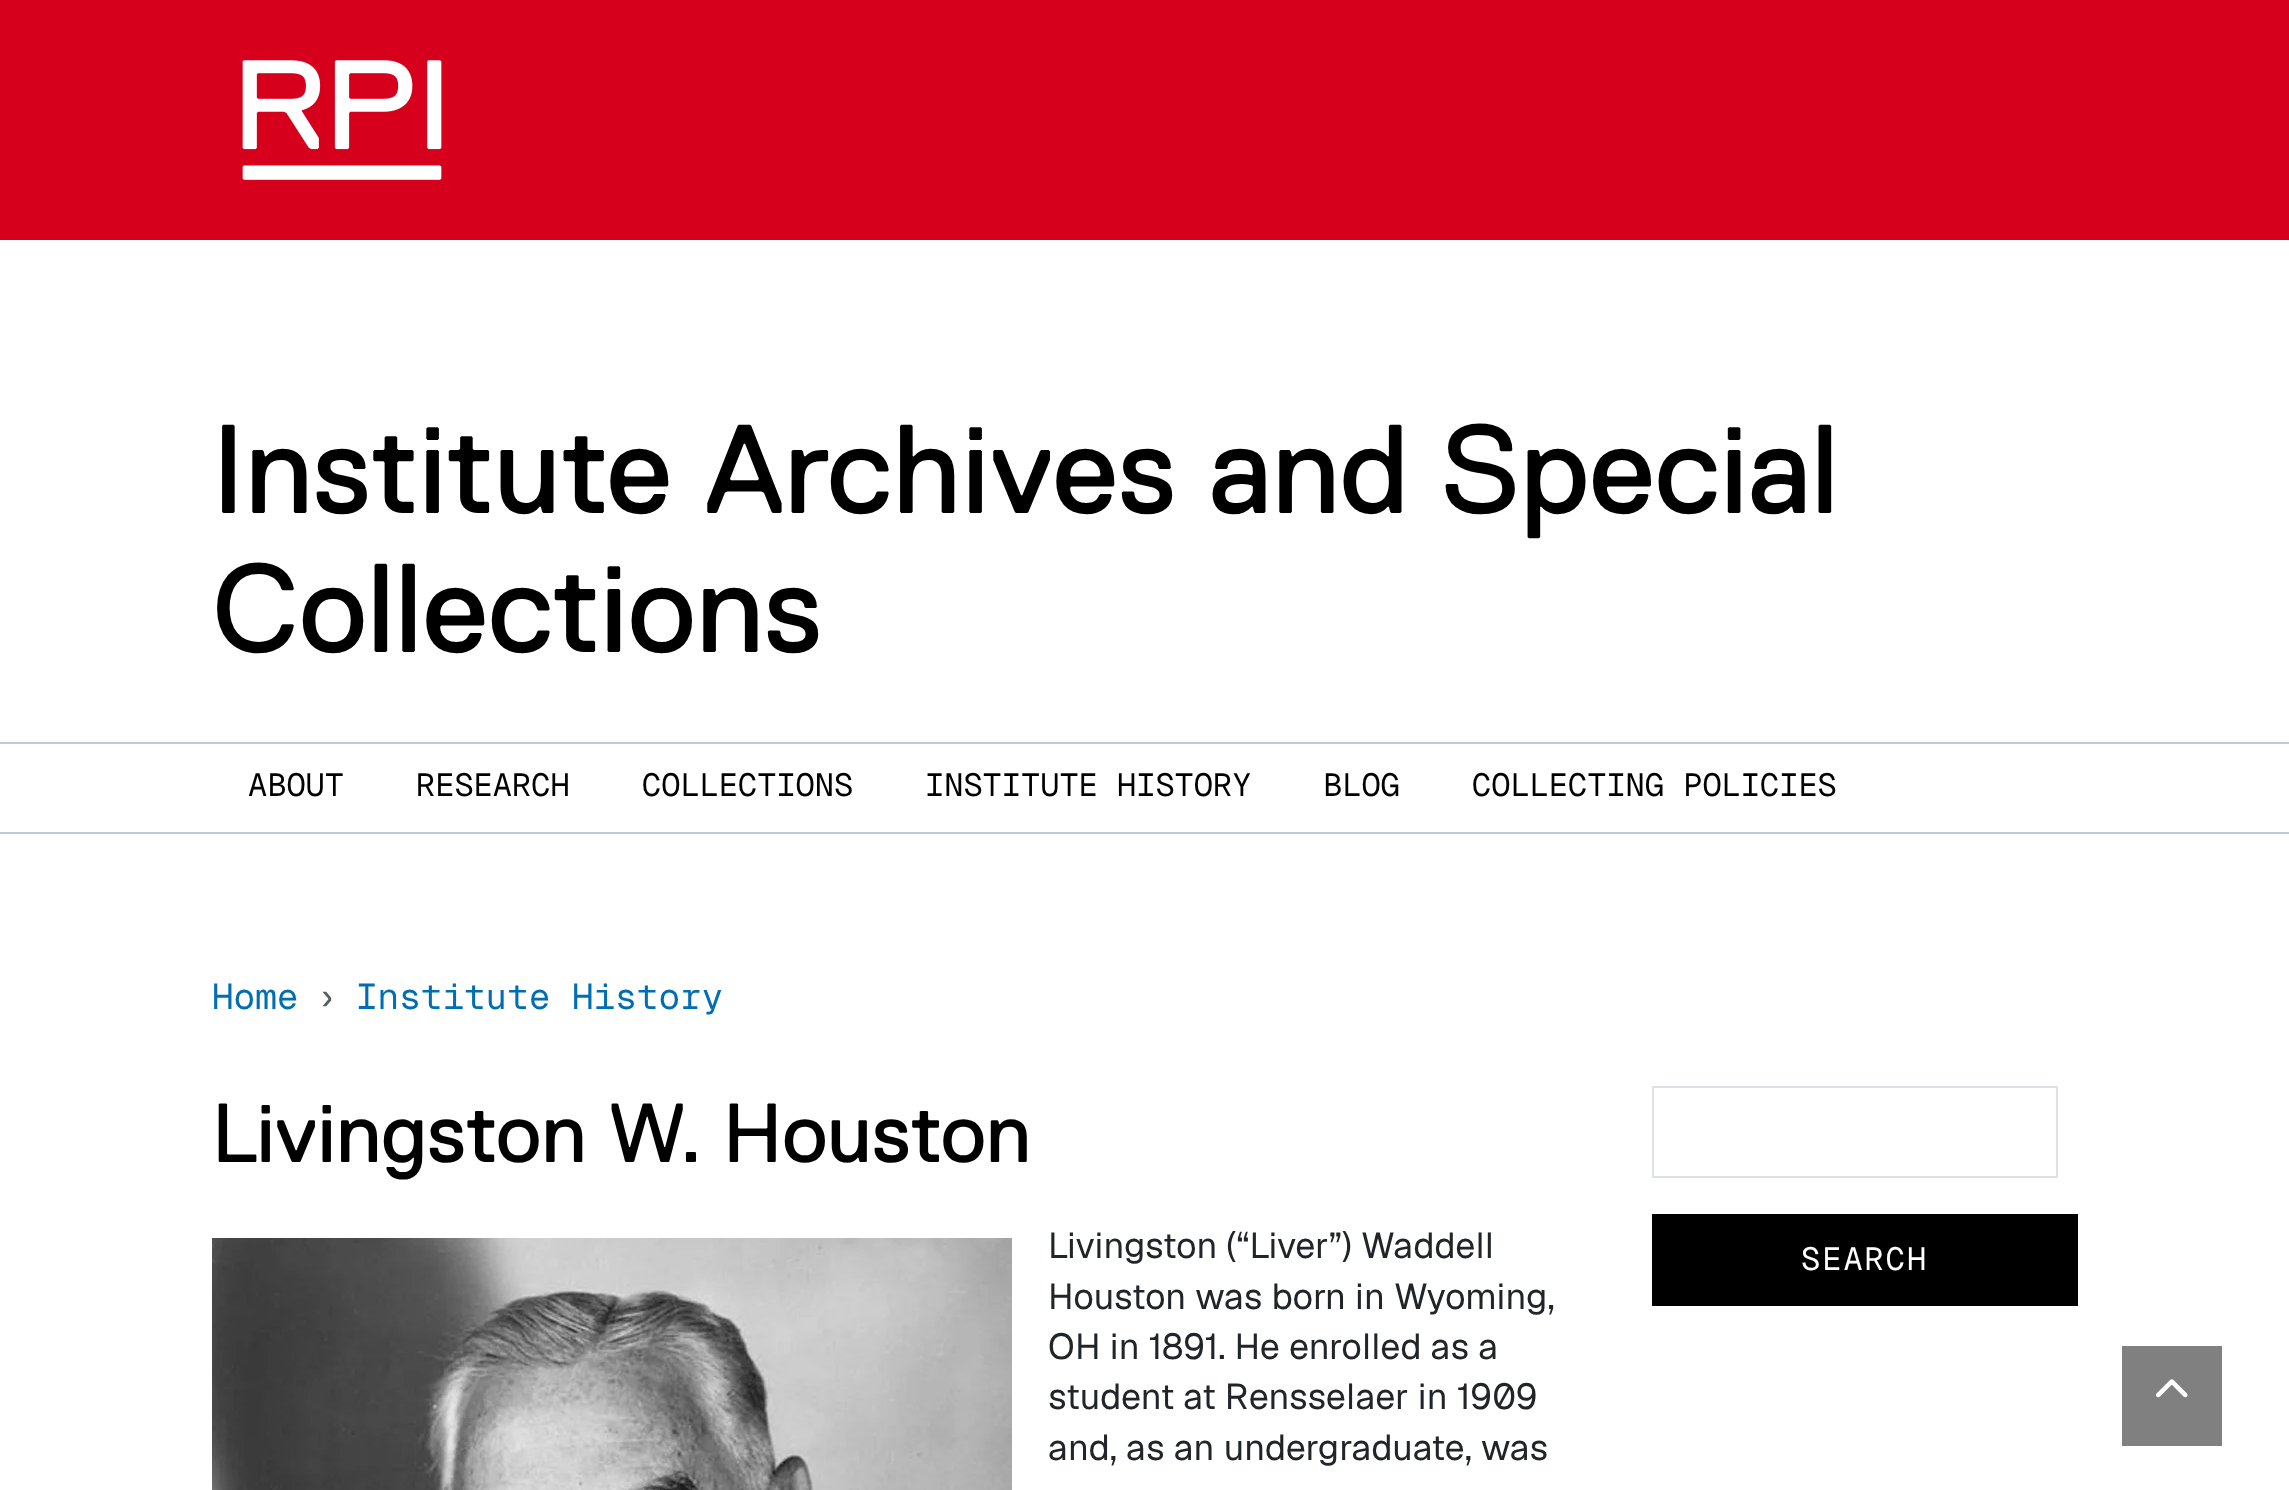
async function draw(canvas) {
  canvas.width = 2289;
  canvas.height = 1490;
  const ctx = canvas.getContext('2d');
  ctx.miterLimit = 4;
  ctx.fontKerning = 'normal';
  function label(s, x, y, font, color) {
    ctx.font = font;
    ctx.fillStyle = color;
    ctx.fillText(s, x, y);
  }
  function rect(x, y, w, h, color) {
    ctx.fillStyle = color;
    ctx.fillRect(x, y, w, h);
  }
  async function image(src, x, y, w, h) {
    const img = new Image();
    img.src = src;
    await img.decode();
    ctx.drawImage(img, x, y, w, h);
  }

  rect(0, 0, 2289, 1490, '#fff');
  rect(0, 0, 2289, 240, '#d6001c');
  await image('assets/img1.png', 242, 60, 200, 120);
  label('Institute Archives and Special', 212, 513, '126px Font', '#000');
  label('Collections', 212, 652, '126px Font', '#000');
  rect(0, 742, 2289, 2, '#b9ccd8');
  rect(0, 832, 2289, 2, '#b9ccd8');
  label('ABOUT', 248, 796, '32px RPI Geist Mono', '#000');
  label('RESEARCH', 416, 796, '32px RPI Geist Mono', '#000');
  label('COLLECTIONS', 642, 796, '32px RPI Geist Mono', '#000');
  label('INSTITUTE HISTORY', 925, 796, '32px RPI Geist Mono', '#000');
  label('BLOG', 1323, 796, '32px RPI Geist Mono', '#000');
  label('COLLECTING POLICIES', 1472, 796, '32px RPI Geist Mono', '#000');
  label('Home', 212, 1009, '36px RPI Geist Mono', '#006eb0');
  label('›', 316, 1009, '36px RPI Geist Mono', '#595c5f');
  label('Institute History', 356, 1009, '36px RPI Geist Mono', '#006eb0');
  label('Livingston W. Houston', 212, 1162, '83.75px Font', '#000');
  await image('assets/img2.png', 212, 1238, 800, 252);
  label('Livingston (“Liver”) Waddell', 1048, 1258, '36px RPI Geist', '#212529');
  label('Houston was born in Wyoming,', 1048, 1309, '36px RPI Geist', '#212529');
  label('OH in 1891. He enrolled as a', 1048, 1359, '36px RPI Geist', '#212529');
  label('student at Rensselaer in 1909', 1048, 1409, '36px RPI Geist', '#212529');
  label('and, as an undergraduate, was', 1048, 1460, '36px RPI Geist', '#212529');
  ctx.strokeStyle = '#dee2e6';
  ctx.lineWidth = 2;
  ctx.strokeRect(1653, 1087, 404, 90);
  rect(1652, 1214, 426, 92, '#000');
  ctx.letterSpacing = '2px';
  label('SEARCH', 1801, 1270, '32px RPI Geist Mono', '#fff');
  rect(2122, 1346, 100, 100, '#808080');
  await image('assets/img3.png', 2156, 1379, 32, 19);
}

draw(document.querySelector('canvas'));
